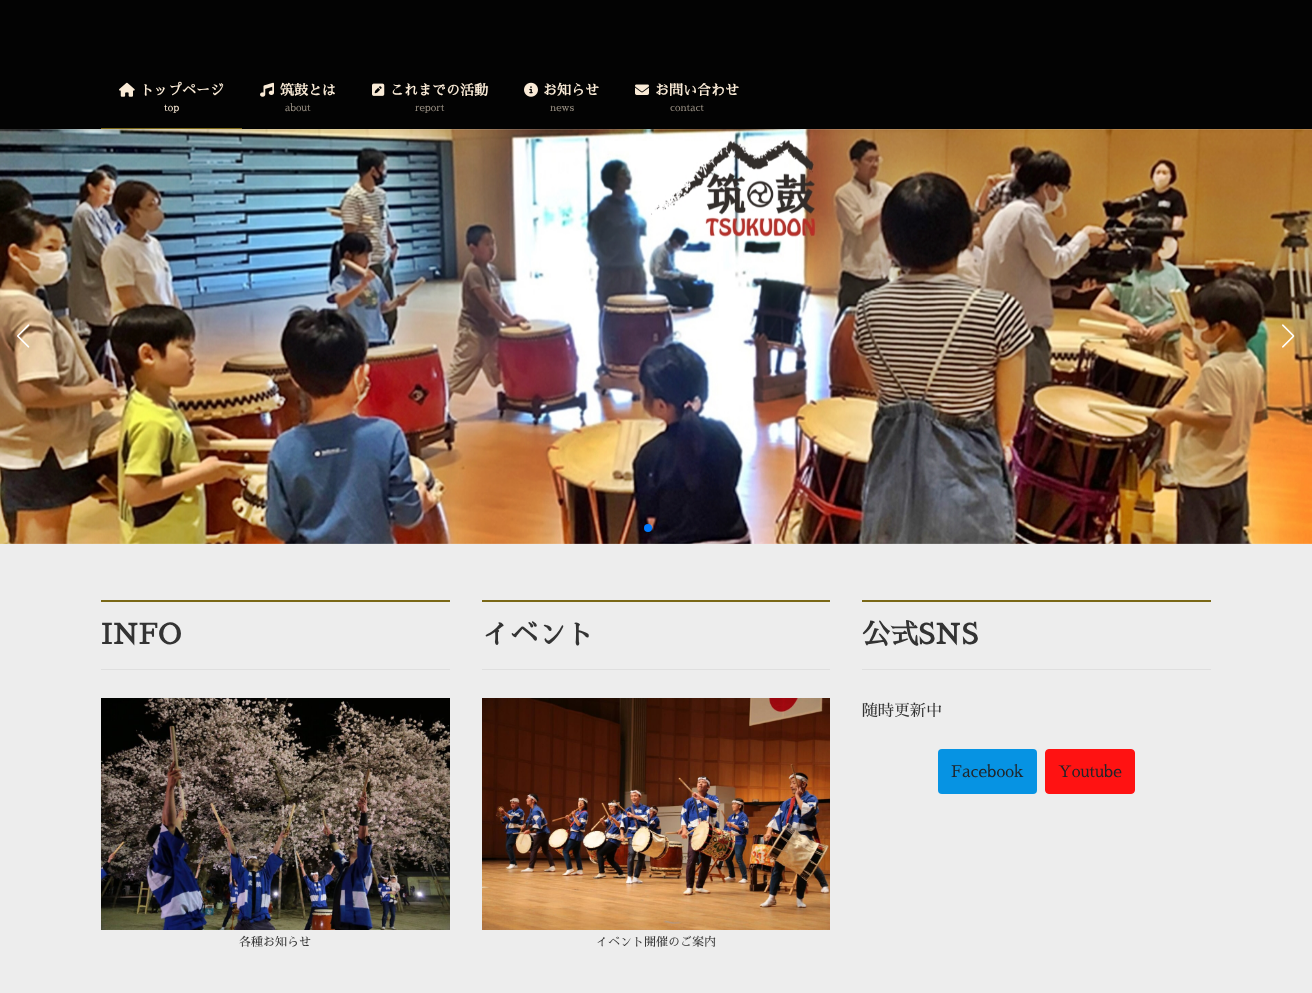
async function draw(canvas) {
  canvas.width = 1312;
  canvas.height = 993;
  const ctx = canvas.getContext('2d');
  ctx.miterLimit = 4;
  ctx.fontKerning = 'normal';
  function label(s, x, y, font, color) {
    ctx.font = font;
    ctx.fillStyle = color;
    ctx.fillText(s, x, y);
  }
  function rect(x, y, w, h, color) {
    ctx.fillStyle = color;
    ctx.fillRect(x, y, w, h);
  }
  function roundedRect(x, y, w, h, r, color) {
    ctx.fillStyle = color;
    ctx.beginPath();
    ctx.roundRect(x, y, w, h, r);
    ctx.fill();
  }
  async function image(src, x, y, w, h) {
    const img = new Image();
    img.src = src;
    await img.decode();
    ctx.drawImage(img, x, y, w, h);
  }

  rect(0, 0, 1312, 993, '#ededed');
  await image('assets/img6.png', 0, 129, 1312, 415);
  ctx.fillStyle = '#0000000d';
  ctx.filter = 'blur(1.5px)';
  ctx.beginPath();
  ctx.rect(0, 1, 1312, 129);
  ctx.fill();
  ctx.filter = 'none';
  rect(0, 0, 1312, 129, '#030303');
  await image('assets/img1.png', 119, 82, 16, 15);
  label('トップページ', 140, 95, 'bold 14px Sawarabi Mincho', '#faebd7');
  label('top', 164, 111, '10px Sawarabi Mincho', '#faebd7');
  rect(101, 128, 141, 1, '#7a6817');
  await image('assets/img2.png', 260, 82, 14, 15);
  label('筑鼓とは', 280, 95, 'bold 14px Sawarabi Mincho', '#faebd7');
  label('about', 285, 111, '10px Sawarabi Mincho', '#978e82');
  await image('assets/img3.png', 372, 83, 13, 13);
  label('これまでの活動', 390, 95, 'bold 14px Sawarabi Mincho', '#faebd7');
  label('report', 415, 111, '10px Sawarabi Mincho', '#978e82');
  await image('assets/img4.png', 524, 82, 14, 15);
  label('お知らせ', 543, 95, 'bold 14px Sawarabi Mincho', '#faebd7');
  label('news', 550, 111, '10px Sawarabi Mincho', '#978e82');
  await image('assets/img5.png', 635, 84, 14, 11);
  label('お問い合わせ', 655, 95, 'bold 14px Sawarabi Mincho', '#faebd7');
  label('contact', 670, 111, '10px Sawarabi Mincho', '#978e82');
  await image('assets/img7.png', 17, 324, 13, 24);
  await image('assets/img8.png', 1282, 324, 13, 24);
  ctx.fillStyle = '#007aff';
  ctx.beginPath();
  ctx.arc(648, 528, 4, 0, 2 * Math.PI);
  ctx.fill();
  ctx.fillStyle = '#00000033';
  ctx.beginPath();
  ctx.arc(664, 528, 4, 0, 2 * Math.PI);
  ctx.fill();
  rect(101, 600, 349, 2, '#7a6817');
  rect(101, 669, 349, 1, '#dfdfdf');
  label('INFO', 101, 644, 'bold 28px Sawarabi Mincho', '#333');
  await image('assets/img9.png', 101, 698, 349, 232);
  label('各種お知らせ', 239, 946, '12px Sawarabi Mincho', '#333');
  rect(482, 600, 348, 2, '#7a6817');
  rect(482, 669, 348, 1, '#dfdfdf');
  label('イベント', 482, 644, 'bold 28px Sawarabi Mincho', '#333');
  await image('assets/img10.png', 482, 698, 348, 232);
  label('イベント開催のご案内', 596, 946, '12px Sawarabi Mincho', '#333');
  rect(862, 600, 349, 2, '#7a6817');
  rect(862, 669, 349, 1, '#dfdfdf');
  label('公式SNS', 862, 644, 'bold 28px Sawarabi Mincho', '#333');
  label('随時更新中', 862, 716, '16px Sawarabi Mincho', '#333');
  roundedRect(938, 749, 99, 45, 4, '#0693e3');
  label('Facebook', 951, 777, '16px Sawarabi Mincho', '#212529');
  ctx.fillStyle = '#ff1212';
  ctx.beginPath();
  ctx.roundRect(1045.5, 749.5, 89, 44, 3.5);
  ctx.fill();
  ctx.strokeStyle = '#ff1212';
  ctx.stroke();
  label('Youtube', 1058, 777, '16px Sawarabi Mincho', '#212529');
}

draw(document.querySelector('canvas'));
